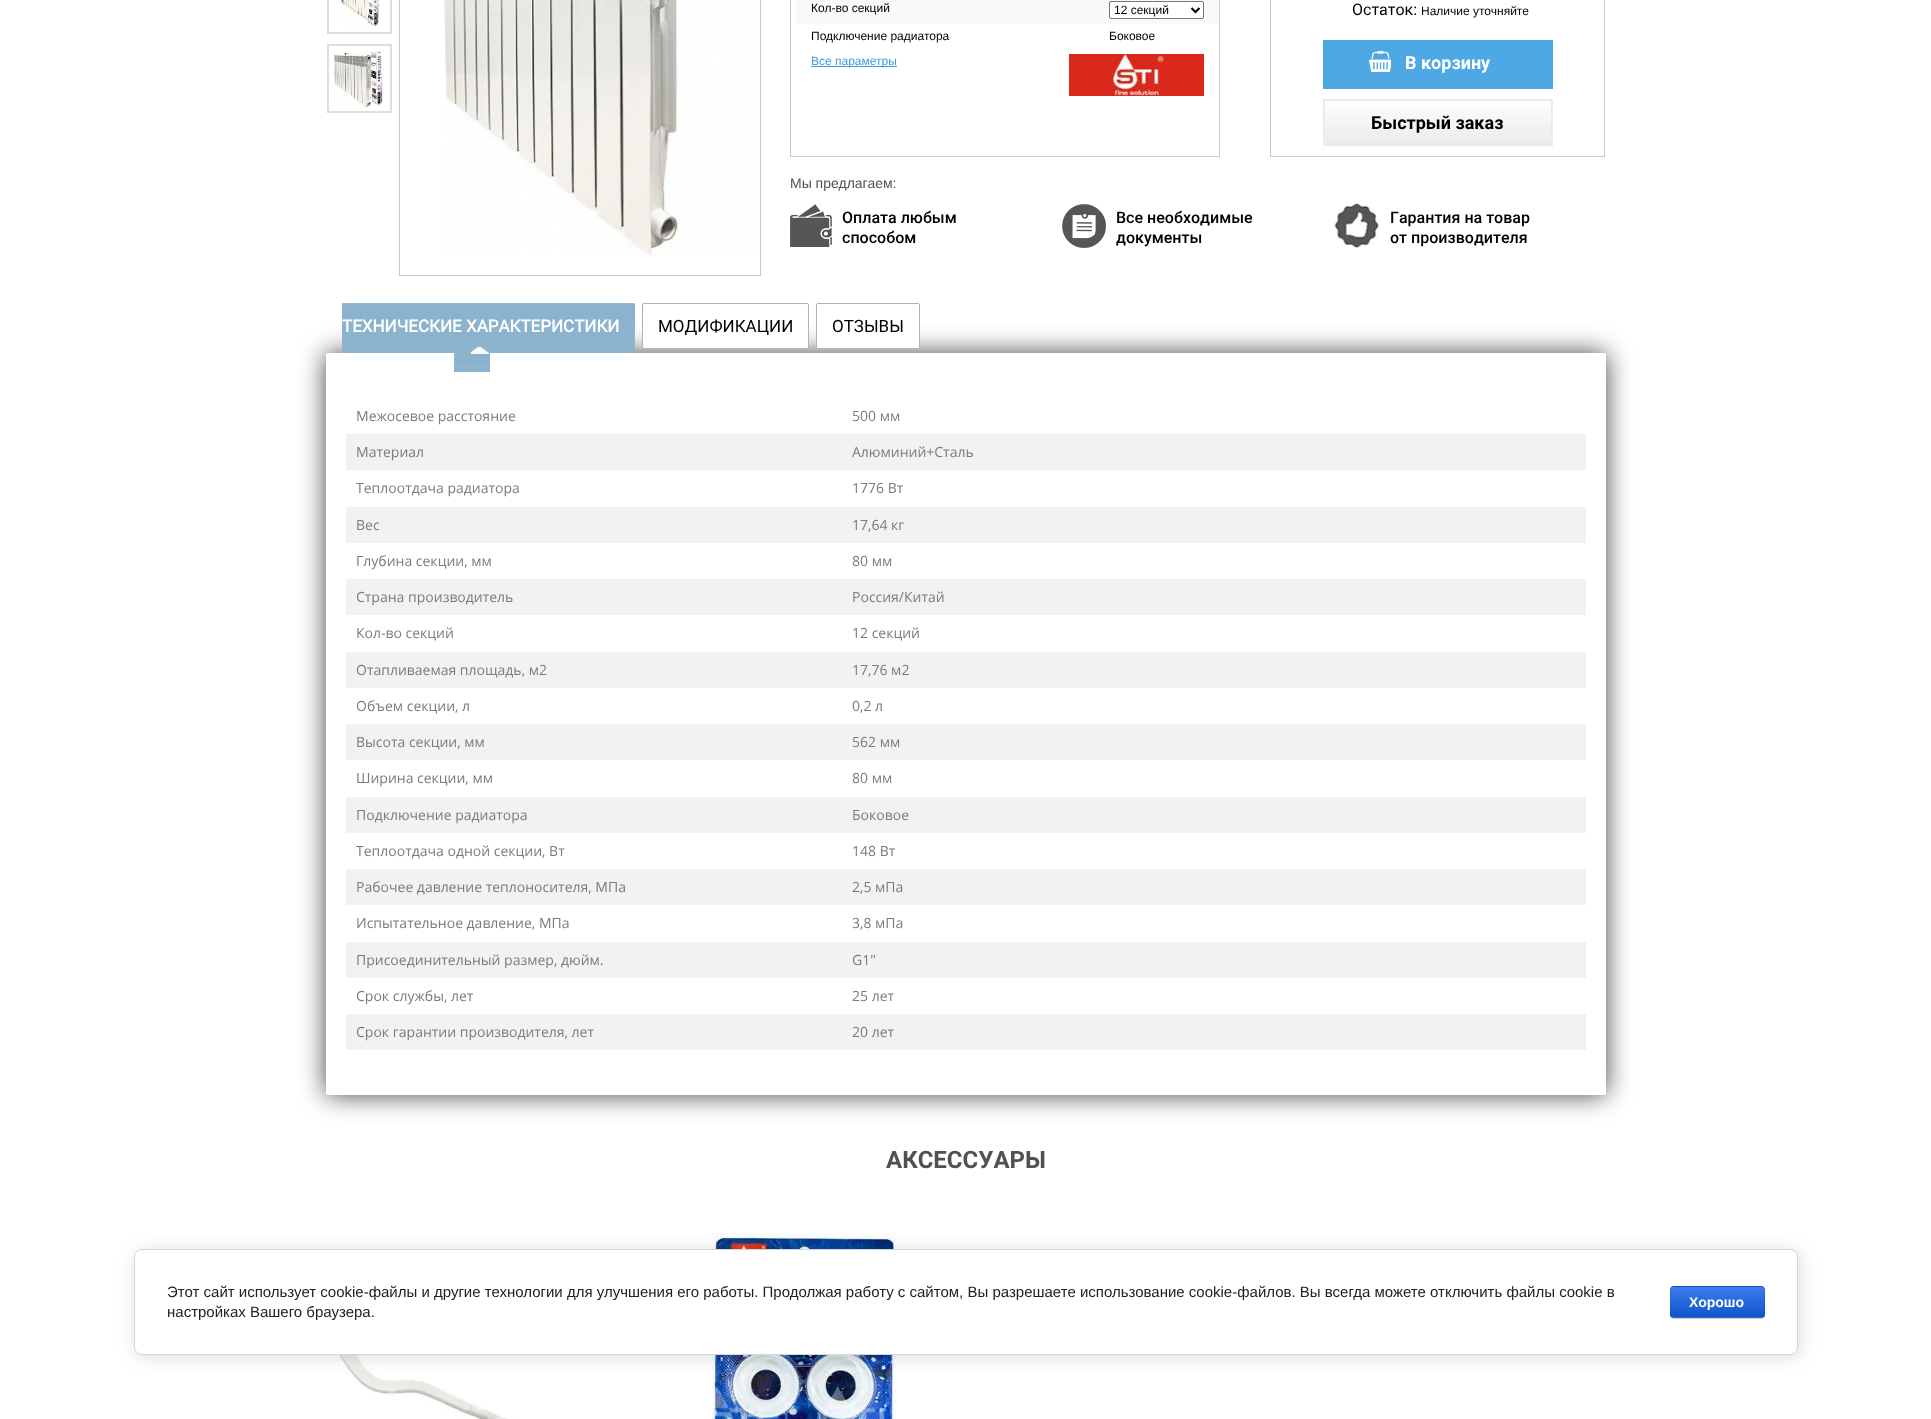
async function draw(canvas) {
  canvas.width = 1931;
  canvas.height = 1419;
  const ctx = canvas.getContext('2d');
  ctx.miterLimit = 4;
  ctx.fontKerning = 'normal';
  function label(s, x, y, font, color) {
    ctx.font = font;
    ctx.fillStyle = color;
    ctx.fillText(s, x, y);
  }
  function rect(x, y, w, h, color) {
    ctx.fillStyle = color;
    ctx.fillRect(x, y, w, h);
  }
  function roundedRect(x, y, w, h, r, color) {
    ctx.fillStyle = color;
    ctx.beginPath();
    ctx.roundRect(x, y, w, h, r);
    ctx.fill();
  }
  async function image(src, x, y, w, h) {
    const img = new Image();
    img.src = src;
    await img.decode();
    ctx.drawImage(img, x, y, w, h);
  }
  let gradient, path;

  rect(0, 0, 1931, 1419, '#fff');
  ctx.strokeStyle = '#dedede';
  ctx.lineWidth = 2;
  ctx.strokeRect(328, -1, 63, 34);
  await image('assets/img1.png', 341, 0, 38, 27);
  ctx.strokeRect(328, 45, 63, 67);
  await image('assets/img2.png', 333, 51, 51, 57);
  ctx.strokeStyle = '#c9c9c9';
  ctx.lineWidth = 1;
  ctx.strokeRect(399.5, -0.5, 361, 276);
  await image('assets/img3.png', 444, 0, 316, 256);
  ctx.strokeStyle = '#cacaca';
  ctx.strokeRect(790.5, -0.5, 429, 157);
  rect(796, 0, 423, 24, '#f9f9f9');
  label('Кол-во секций', 811, 12, '12px Liberation Sans', '#000');
  ctx.fillStyle = '#fff';
  ctx.beginPath();
  ctx.roundRect(1109.5, 1.5, 94, 17, 1.5);
  ctx.fill();
  ctx.strokeStyle = '#767676';
  ctx.stroke();
  path = new Path2D('M1191.5 8L1195.5 12L1199.5 8');
  ctx.strokeStyle = '#000';
  ctx.lineWidth = 2;
  ctx.stroke(path);
  label('12 секций', 1114, 14, '12px Liberation Sans', '#000');
  label('Подключение радиатора', 811, 40, '12px Liberation Sans', '#000');
  label('Боковое', 1109, 40, '12px Liberation Sans', '#000');
  rect(811, 66, 86, 1, '#3d9ede');
  label('Все параметры', 811, 65, '12px Liberation Sans', '#3d9ede');
  await image('assets/img4.png', 1069, 54, 135, 42);
  ctx.strokeStyle = '#cacaca';
  ctx.lineWidth = 1;
  ctx.strokeRect(1270.5, -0.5, 334, 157);
  label('Остаток:', 1352, 15, '16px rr', '#000');
  label('Наличие уточняйте', 1421, 15, '12px Liberation Sans', '#000');
  rect(1323, 40, 230, 49, '#4ea8e4');
  await image('assets/img5.png', 1369, 51, 22, 21);
  label('В корзину', 1405, 69, 'bold 18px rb', '#fff');
  gradient = ctx.createLinearGradient(1438, 101, 1438, 144);
  gradient.addColorStop(0, '#fefefe');
  gradient.addColorStop(1, '#ebebeb');
  ctx.fillStyle = gradient;
  ctx.fillRect(1325, 104, 226, 40);
  ctx.strokeStyle = '#ebebeb';
  ctx.lineWidth = 2;
  ctx.strokeRect(1324, 100, 228, 45);
  label('Быстрый заказ', 1371, 129, 'bold 18px rb', '#000');
  label('Мы предлагаем:', 790, 188, '14px Liberation Sans', '#525151');
  await image('assets/img6.png', 790, 204, 42, 43);
  label('Оплата любым', 842, 223, '500 16px Roboto', '#000');
  label('способом', 842, 243, '500 16px Roboto', '#000');
  await image('assets/img7.png', 1062, 204, 44, 44);
  label('Все необходимые', 1116, 223, '500 16px Roboto', '#000');
  label('документы', 1116, 243, '500 16px Roboto', '#000');
  await image('assets/img8.png', 1334, 203, 45, 45);
  label('Гарантия на товар', 1390, 223, '500 16px Roboto', '#000');
  label('от производителя', 1390, 243, '500 16px Roboto', '#000');
  ctx.fillStyle = '#000301bf';
  ctx.filter = 'blur(13px)';
  ctx.beginPath();
  ctx.roundRect(326, 353, 1280, 742, 2);
  ctx.fill();
  ctx.filter = 'none';
  roundedRect(326, 353, 1280, 742, 2, '#fff');
  rect(454, 368, 36, 4, '#8bb3ce');
  rect(455, 353, 35, 14, '#8bb3ce');
  rect(454, 367, 36, 1, '#93b8d1');
  rect(454, 353, 1, 15, '#93b8d1');
  rect(342, 349, 293, 4, '#8bb3ce');
  ctx.beginPath();
  ctx.roundRect(342, 303, 293, 46, [0, 2, 0, 0]);
  ctx.fill();
  rect(342, 303, 292, 1, '#93b8d1');
  rect(634, 304, 1, 45, '#93b8d1');
  rect(342, 348, 293, 1, '#93b8d1');
  label('ТЕХНИЧЕСКИЕ ХАРАКТЕРИСТИКИ', 342, 332, 'bold 17px rr', '#fff');
  await image('assets/img9.png', 471, 346, 18, 8);
  ctx.beginPath();
  ctx.roundRect(642.5, 303.5, 166, 45, [1.5, 1.5, 0, 0]);
  ctx.fill();
  ctx.strokeStyle = '#b2b2b2';
  ctx.lineWidth = 1;
  ctx.stroke();
  label('МОДИФИКАЦИИ', 658, 332, '17px rr', '#000');
  ctx.fillStyle = '#fff';
  ctx.beginPath();
  ctx.roundRect(816.5, 303.5, 103, 45, [1.5, 1.5, 0, 0]);
  ctx.fill();
  ctx.stroke();
  label('ОТЗЫВЫ', 832, 332, '17px rr', '#000');
  label('Межосевое расстояние', 356, 421, '14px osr', '#7b7b7b');
  label('500 мм', 852, 421, '14px osr', '#7b7b7b');
  rect(346, 434, 1240, 36, '#f2f2f2');
  label('Материал', 356, 457, '14px osr', '#7b7b7b');
  label('Алюминий+Сталь', 852, 457, '14px osr', '#7b7b7b');
  label('Теплоотдача радиатора', 356, 493, '14px osr', '#7b7b7b');
  label('1776 Вт', 852, 493, '14px osr', '#7b7b7b');
  rect(346, 507, 1240, 36, '#f2f2f2');
  label('Вес', 356, 530, '14px osr', '#7b7b7b');
  label('17,64 кг', 852, 530, '14px osr', '#7b7b7b');
  label('Глубина секции, мм', 356, 566, '14px osr', '#7b7b7b');
  label('80 мм', 852, 566, '14px osr', '#7b7b7b');
  rect(346, 579, 1240, 36, '#f2f2f2');
  label('Страна производитель', 356, 602, '14px osr', '#7b7b7b');
  label('Россия/Китай', 852, 602, '14px osr', '#7b7b7b');
  label('Кол-во секций', 356, 638, '14px osr', '#7b7b7b');
  label('12 секций', 852, 638, '14px osr', '#7b7b7b');
  rect(346, 652, 1240, 36, '#f2f2f2');
  label('Отапливаемая площадь, м2', 356, 675, '14px osr', '#7b7b7b');
  label('17,76 м2', 852, 675, '14px osr', '#7b7b7b');
  label('Объем секции, л', 356, 711, '14px osr', '#7b7b7b');
  label('0,2 л', 852, 711, '14px osr', '#7b7b7b');
  rect(346, 724, 1240, 36, '#f2f2f2');
  label('Высота секции, мм', 356, 747, '14px osr', '#7b7b7b');
  label('562 мм', 852, 747, '14px osr', '#7b7b7b');
  label('Ширина секции, мм', 356, 783, '14px osr', '#7b7b7b');
  label('80 мм', 852, 783, '14px osr', '#7b7b7b');
  rect(346, 797, 1240, 36, '#f2f2f2');
  label('Подключение радиатора', 356, 820, '14px osr', '#7b7b7b');
  label('Боковое', 852, 820, '14px osr', '#7b7b7b');
  label('Теплоотдача одной секции, Вт', 356, 856, '14px osr', '#7b7b7b');
  label('148 Вт', 852, 856, '14px osr', '#7b7b7b');
  rect(346, 869, 1240, 36, '#f2f2f2');
  label('Рабочее давление теплоносителя, МПа', 356, 892, '14px osr', '#7b7b7b');
  label('2,5 мПа', 852, 892, '14px osr', '#7b7b7b');
  label('Испытательное давление, МПа', 356, 928, '14px osr', '#7b7b7b');
  label('3,8 мПа', 852, 928, '14px osr', '#7b7b7b');
  rect(346, 942, 1240, 36, '#f2f2f2');
  label('Присоединительный размер, дюйм.', 356, 965, '14px osr', '#7b7b7b');
  label('G1"', 852, 965, '14px osr', '#7b7b7b');
  label('Срок службы, лет', 356, 1001, '14px osr', '#7b7b7b');
  label('25 лет', 852, 1001, '14px osr', '#7b7b7b');
  rect(346, 1014, 1240, 36, '#f2f2f2');
  label('Срок гарантии производителя, лет', 356, 1037, '14px osr', '#7b7b7b');
  label('20 лет', 852, 1037, '14px osr', '#7b7b7b');
  label('АКСЕССУАРЫ', 886, 1168, 'bold 24px rb', '#525151');
  await image('assets/img10.png', 336, 1355, 267, 64);
  await image('assets/img11.png', 712, 1233, 185, 186);
  ctx.fillStyle = '#00000024';
  ctx.filter = 'blur(9px)';
  ctx.beginPath();
  ctx.roundRect(136, 1251, 1664, 106, 8);
  ctx.fill();
  ctx.filter = 'none';
  ctx.fillStyle = '#fff';
  ctx.beginPath();
  ctx.roundRect(134.5, 1249.5, 1663, 105, 7.5);
  ctx.fill();
  ctx.strokeStyle = '#d6d6d6';
  ctx.stroke();
  label('Этот сайт использует cookie-файлы и другие технологии для улучшения его работы. Продолжая работу с сайтом, Вы разрешаете использование cookie-файлов. Вы всегда можете отключить файлы cookie в', 167, 1297, '15px Liberation Sans', '#212121');
  label('настройках Вашего браузера.', 167, 1317, '15px Liberation Sans', '#212121');
  ctx.fillStyle = '#00000033';
  ctx.filter = 'blur(0.5px)';
  ctx.beginPath();
  ctx.roundRect(1670, 1287, 95, 32, 4);
  ctx.fill();
  ctx.filter = 'none';
  ctx.save();
  ctx.beginPath();
  ctx.roundRect(1670, 1286, 95, 32, 4);
  ctx.clip();
  gradient = ctx.createLinearGradient(1718, 1257, 1718, 1287);
  gradient.addColorStop(0, '#3b7cef');
  gradient.addColorStop(1, '#15c');
  ctx.fillStyle = gradient;
  ctx.fillRect(1670, 1286, 95, 1);
  gradient = ctx.createLinearGradient(1718, 1287, 1718, 1317);
  gradient.addColorStop(0, '#3b7cef');
  gradient.addColorStop(1, '#15c');
  ctx.fillStyle = gradient;
  ctx.fillRect(1670, 1287, 95, 30);
  gradient = ctx.createLinearGradient(1718, 1317, 1718, 1347);
  gradient.addColorStop(0, '#3b7cef');
  gradient.addColorStop(1, '#15c');
  ctx.fillStyle = gradient;
  ctx.fillRect(1670, 1317, 95, 1);
  ctx.restore();
  ctx.beginPath();
  ctx.roundRect(1670.5, 1286.5, 94, 31, 3.5);
  ctx.strokeStyle = '#0000001a';
  ctx.stroke();
  label('Хорошо', 1689, 1307, 'bold 14px Liberation Sans', '#fff');
}

draw(document.querySelector('canvas'));
